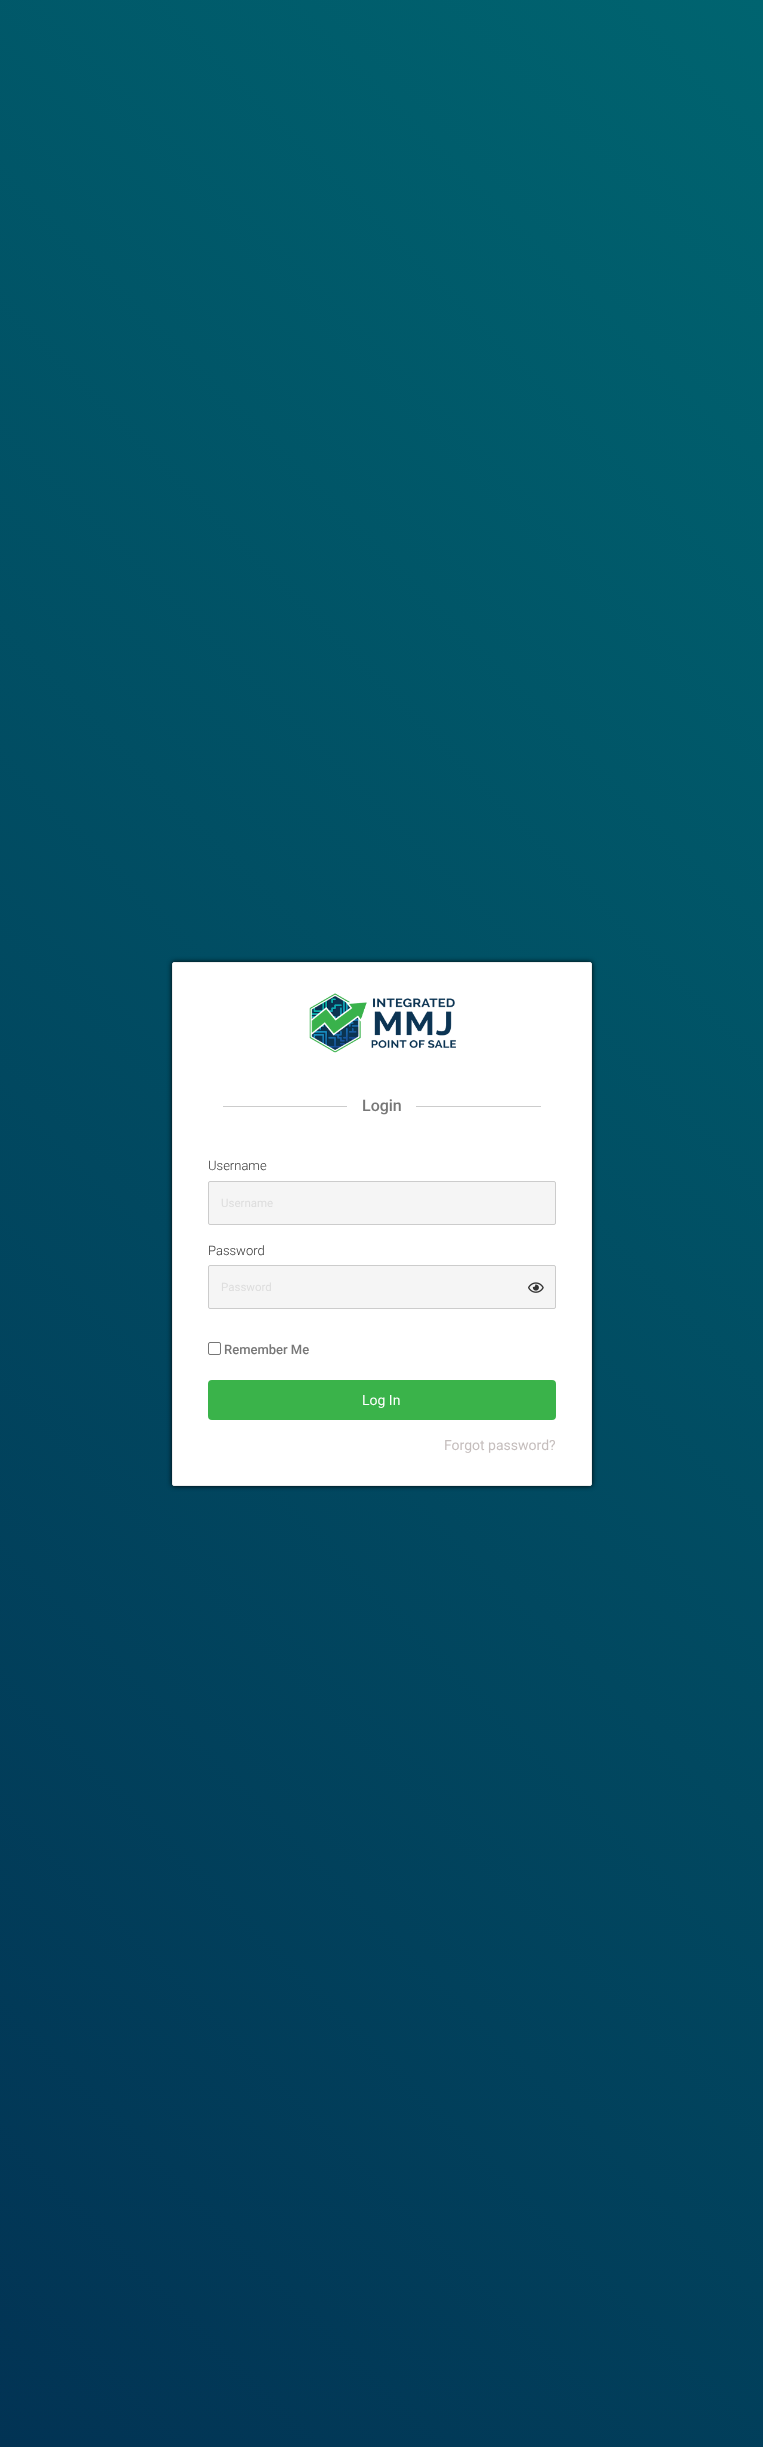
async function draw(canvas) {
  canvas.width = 763;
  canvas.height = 2447;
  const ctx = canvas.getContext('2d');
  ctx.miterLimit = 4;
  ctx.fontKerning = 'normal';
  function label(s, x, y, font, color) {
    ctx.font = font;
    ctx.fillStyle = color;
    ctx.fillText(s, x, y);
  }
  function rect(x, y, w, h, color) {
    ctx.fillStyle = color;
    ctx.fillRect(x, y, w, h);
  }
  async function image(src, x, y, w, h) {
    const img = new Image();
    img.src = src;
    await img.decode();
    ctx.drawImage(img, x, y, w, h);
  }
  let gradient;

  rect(0, 0, 763, 2447, '#fff');
  gradient = ctx.createLinearGradient(-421, 2026, 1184, 421);
  gradient.addColorStop(0, '#023354');
  gradient.addColorStop(1, '#006470');
  ctx.fillStyle = gradient;
  ctx.fillRect(0, 0, 763, 2447);
  ctx.fillStyle = '#000000f2';
  ctx.filter = 'blur(2.5px)';
  ctx.beginPath();
  ctx.roundRect(172, 962, 420, 524, 2);
  ctx.fill();
  ctx.filter = 'none';
  ctx.fillStyle = '#fff';
  ctx.beginPath();
  ctx.roundRect(172.5, 962.5, 419, 523, 1.5);
  ctx.fill();
  ctx.strokeStyle = '#eee';
  ctx.stroke();
  rect(173, 963, 418, 1, '#fff');
  await image('assets/img1.png', 309, 993, 147, 60);
  rect(223, 1106, 318, 1, '#ccc');
  rect(347, 1106, 69, 1, '#fff');
  label('Login', 362, 1111, '500 16px Roboto', '#777');
  label('Username', 208, 1170, '300 13px Roboto', '#333');
  ctx.fillStyle = '#f5f5f5';
  ctx.beginPath();
  ctx.roundRect(208.5, 1181.5, 347, 43, 1.5);
  ctx.fill();
  ctx.strokeStyle = '#ccc';
  ctx.stroke();
  label('Username', 221, 1207, '11.5px Roboto', '#ddd');
  label('Password', 208, 1255, '300 13px Roboto', '#333');
  ctx.fillStyle = '#f5f5f5';
  ctx.beginPath();
  ctx.roundRect(208.5, 1265.5, 347, 43, 1.5);
  ctx.fill();
  ctx.stroke();
  label('Password', 221, 1291, '11.5px Roboto', '#ddd');
  await image('assets/img2.png', 528, 1282, 16, 11);
  ctx.beginPath();
  ctx.roundRect(208.5, 1342.5, 12, 12, 1.5);
  ctx.strokeStyle = '#767676';
  ctx.stroke();
  label('Remember Me', 224, 1354, '500 13px Roboto', '#777');
  ctx.fillStyle = '#3ab34a';
  ctx.beginPath();
  ctx.roundRect(209, 1381, 346, 38, 3);
  ctx.fill();
  ctx.strokeStyle = '#3ab34a';
  ctx.lineWidth = 2;
  ctx.stroke();
  label('Log In', 362, 1405, '14px Roboto', '#fff');
  label('Forgot password?', 444, 1450, '14px Roboto', '#c5bebd');
}

draw(document.querySelector('canvas'));
